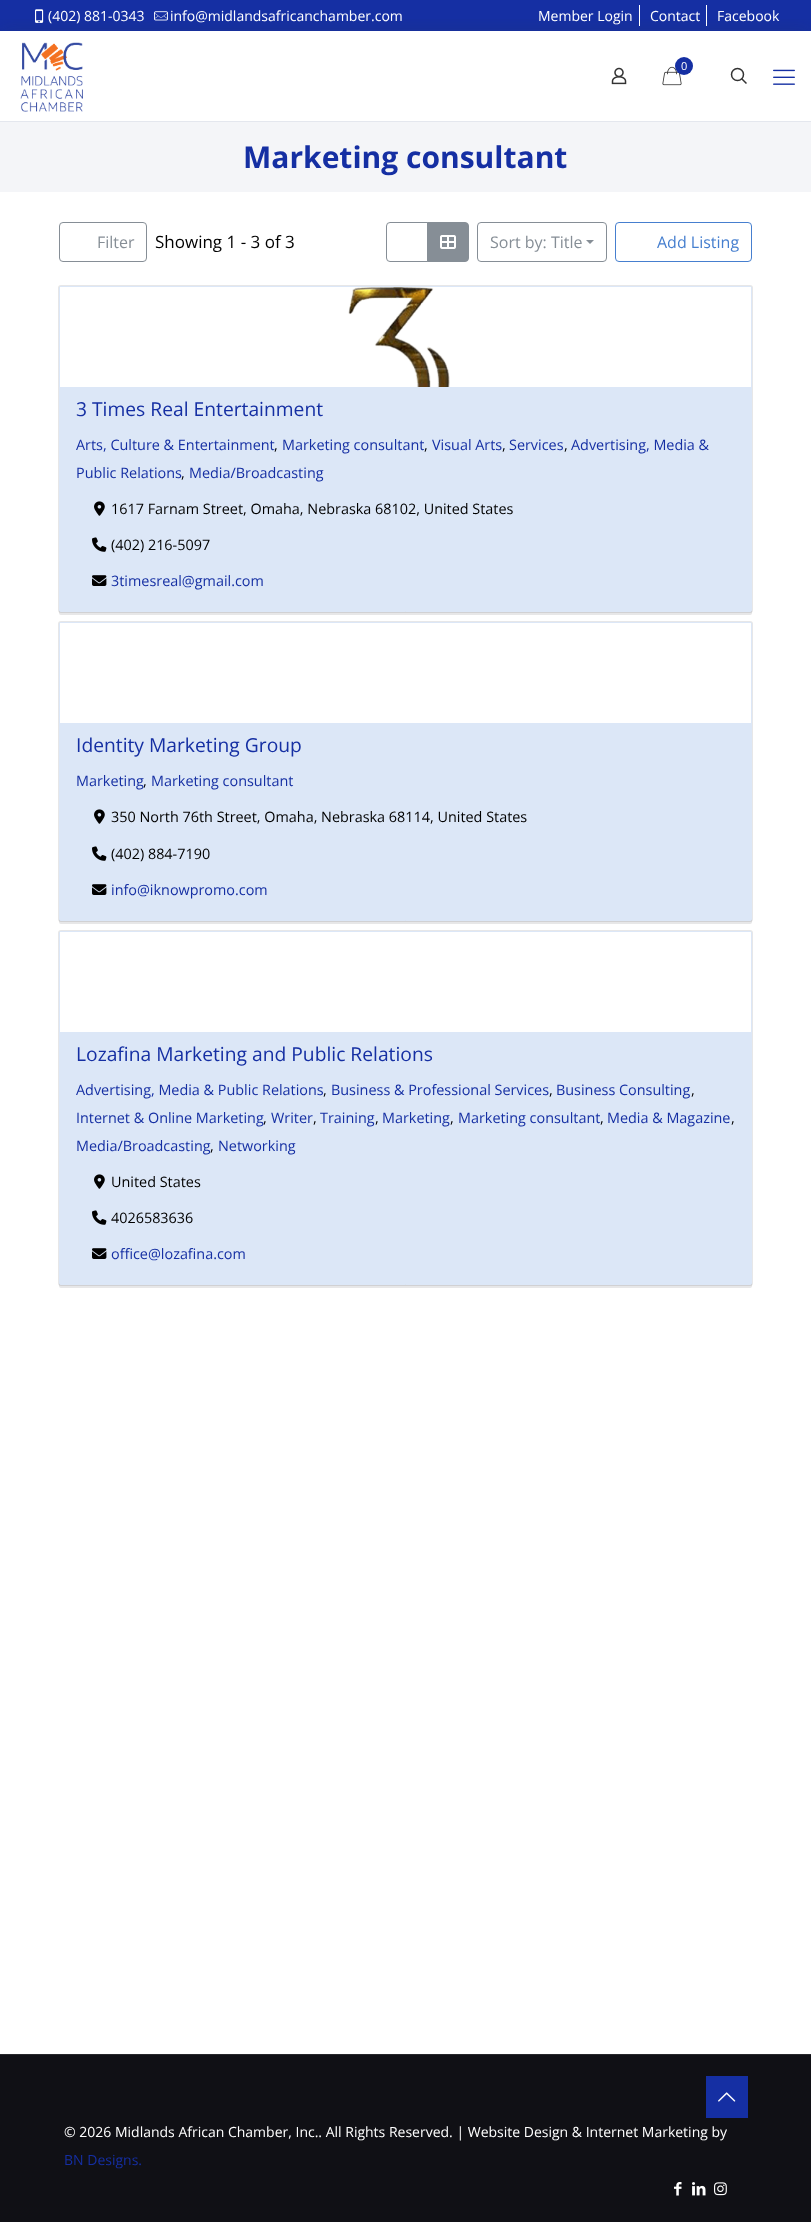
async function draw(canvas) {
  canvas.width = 811;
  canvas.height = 2222;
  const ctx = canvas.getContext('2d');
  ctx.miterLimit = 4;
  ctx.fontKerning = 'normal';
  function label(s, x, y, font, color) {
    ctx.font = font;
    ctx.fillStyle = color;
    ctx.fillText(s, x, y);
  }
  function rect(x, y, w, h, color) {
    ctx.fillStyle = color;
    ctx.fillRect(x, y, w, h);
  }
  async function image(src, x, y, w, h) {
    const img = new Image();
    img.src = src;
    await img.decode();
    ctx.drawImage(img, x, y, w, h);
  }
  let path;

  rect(0, 0, 811, 2222, '#fff');
  rect(0, 0, 811, 31, '#152fa3');
  ctx.save();
  ctx.beginPath();
  ctx.rect(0, 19, 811, 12);
  ctx.clip();
  ctx.fillStyle = '#2e3d4933';
  ctx.filter = 'blur(10px)';
  ctx.beginPath();
  ctx.rect(0, 32, 811, 91);
  ctx.fill();
  ctx.filter = 'none';
  ctx.restore();
  await image('assets/img1.png', 35, 9, 9, 14);
  label('(402) 881-0343', 48, 21, '14px Open Sans', '#fff');
  await image('assets/img2.png', 154, 11, 14, 10);
  label('info@midlandsafricanchamber.com', 170, 21, '14px Open Sans', '#fff');
  rect(639, 5, 1, 21, '#fff');
  label('Member Login', 538, 21, '14px Open Sans', '#fff');
  rect(706, 5, 1, 21, '#fff');
  label('Contact', 650, 21, '14px Open Sans', '#fff');
  label('Facebook', 717, 21, '14px Open Sans', '#fff');
  rect(0, 121, 811, 1, '#e4e7ee');
  await image('assets/img3.png', 20, 42, 63, 70);
  await image('assets/img4.png', 611, 67, 16, 18);
  await image('assets/img5.png', 662, 66, 20, 20);
  ctx.fillStyle = '#152fa3';
  ctx.beginPath();
  ctx.arc(684, 66, 9, 0, 2 * Math.PI);
  ctx.fill();
  label('0', 681, 70, '11px Open Sans', '#fff');
  ctx.beginPath();
  ctx.arc(737.5, 74.5, 6, 0, 2 * Math.PI);
  ctx.strokeStyle = '#333';
  ctx.lineWidth = 1.5;
  ctx.stroke();
  path = new Path2D('M741.5 78.5L746.5 83.5');
  ctx.stroke(path);
  await image('assets/img6.png', 773, 69, 22, 16);
  rect(0, 122, 811, 70, '#f4f5f8');
  label('Marketing consultant', 243, 168, 'bold 30px Open Sans', '#152fa3');
  ctx.beginPath();
  ctx.roundRect(59.5, 222.5, 87, 39, 3.5);
  ctx.strokeStyle = '#868e96';
  ctx.lineWidth = 1;
  ctx.stroke();
  label('Filter', 97, 248, '16px Open Sans', '#868e96');
  label('Showing 1 - 3 of 3', 155, 248, '17px Open Sans', '#000');
  ctx.beginPath();
  ctx.roundRect(386.5, 222.5, 41, 39, [3.5, 0, 0, 3.5]);
  ctx.stroke();
  ctx.fillStyle = '#868e96';
  ctx.beginPath();
  ctx.roundRect(427.5, 222.5, 41, 39, [0, 3.5, 3.5, 0]);
  ctx.fill();
  ctx.stroke();
  await image('assets/img7.png', 440, 235, 16, 14);
  ctx.beginPath();
  ctx.roundRect(477.5, 222.5, 129, 39, 3.5);
  ctx.stroke();
  label('Sort by: Title', 490, 248, '16px Open Sans', '#868e96');
  path = new Path2D('M586 240H594L590 244Z');
  ctx.fill(path);
  ctx.beginPath();
  ctx.roundRect(615.5, 222.5, 136, 39, 3.5);
  ctx.strokeStyle = '#467fcf';
  ctx.stroke();
  label('Add Listing', 657, 248, '16px Open Sans', '#467fcf');
  ctx.fillStyle = '#14171c1a';
  ctx.filter = 'blur(0.5px)';
  ctx.beginPath();
  ctx.roundRect(59, 289, 693, 326, 2);
  ctx.fill();
  ctx.filter = 'none';
  ctx.filter = 'blur(0.5px)';
  ctx.beginPath();
  ctx.roundRect(58, 285, 695, 328, 3);
  ctx.fill();
  ctx.filter = 'none';
  ctx.fillStyle = '#dce7f7';
  ctx.beginPath();
  ctx.roundRect(59.5, 286.5, 692, 325, 1.5);
  ctx.fill();
  ctx.strokeStyle = '#dce7f7';
  ctx.stroke();
  rect(60, 287, 691, 100, '#fff');
  await image('assets/img8.png', 348, 287, 102, 100);
  label('3 Times Real Entertainment', 76, 416, '19.25px Open Sans', '#152fa3');
  label('Arts, Culture & Entertainment', 76, 450, '14.4px Open Sans', '#152fa3');
  label(',', 274, 450, '14.4px Open Sans', '#000');
  label('Marketing consultant', 282, 450, '14.4px Open Sans', '#152fa3');
  label(',', 424, 450, '14.4px Open Sans', '#000');
  label('Visual Arts', 432, 450, '14.4px Open Sans', '#152fa3');
  label(',', 502, 450, '14.4px Open Sans', '#000');
  label('Services', 509, 450, '14.4px Open Sans', '#152fa3');
  label(',', 564, 450, '14.4px Open Sans', '#000');
  label('Advertising, Media &', 571, 450, '14.4px Open Sans', '#152fa3');
  label('Public Relations', 76, 478, '14.4px Open Sans', '#152fa3');
  label(',', 181, 478, '14.4px Open Sans', '#000');
  label('Media/Broadcasting', 189, 478, '14.4px Open Sans', '#152fa3');
  await image('assets/img9.png', 94, 501, 11, 15);
  label('1617 Farnam Street, Omaha, Nebraska 68102, United States', 111, 514, '14.4px Open Sans', '#000');
  await image('assets/img10.png', 92, 537, 15, 15);
  label('(402) 216-5097', 111, 550, '14.4px Open Sans', '#000');
  await image('assets/img11.png', 92, 575, 15, 11);
  label('3timesreal@gmail.com', 111, 586, '14.4px Open Sans', '#152fa3');
  ctx.fillStyle = '#14171c1a';
  ctx.filter = 'blur(0.5px)';
  ctx.beginPath();
  ctx.roundRect(59, 625, 693, 299, 2);
  ctx.fill();
  ctx.filter = 'none';
  ctx.filter = 'blur(0.5px)';
  ctx.beginPath();
  ctx.roundRect(58, 621, 695, 301, 3);
  ctx.fill();
  ctx.filter = 'none';
  ctx.fillStyle = '#dce7f7';
  ctx.beginPath();
  ctx.roundRect(59.5, 622.5, 692, 298, 1.5);
  ctx.fill();
  ctx.stroke();
  rect(60, 623, 691, 100, '#fff');
  label('Identity Marketing Group', 76, 752, '19.25px Open Sans', '#152fa3');
  label('Marketing', 76, 786, '14.4px Open Sans', '#152fa3');
  label(',', 143, 786, '14.4px Open Sans', '#000');
  label('Marketing consultant', 151, 786, '14.4px Open Sans', '#152fa3');
  await image('assets/img9.png', 94, 809, 11, 15);
  label('350 North 76th Street, Omaha, Nebraska 68114, United States', 111, 822, '14.4px Open Sans', '#000');
  await image('assets/img10.png', 92, 846, 15, 15);
  label('(402) 884-7190', 111, 859, '14.4px Open Sans', '#000');
  await image('assets/img11.png', 92, 884, 15, 11);
  label('info@iknowpromo.com', 111, 895, '14.4px Open Sans', '#152fa3');
  ctx.fillStyle = '#14171c1a';
  ctx.filter = 'blur(0.5px)';
  ctx.beginPath();
  ctx.roundRect(59, 934, 693, 354, 2);
  ctx.fill();
  ctx.filter = 'none';
  ctx.filter = 'blur(0.5px)';
  ctx.beginPath();
  ctx.roundRect(58, 930, 695, 356, 3);
  ctx.fill();
  ctx.filter = 'none';
  ctx.fillStyle = '#dce7f7';
  ctx.beginPath();
  ctx.roundRect(59.5, 931.5, 692, 353, 1.5);
  ctx.fill();
  ctx.stroke();
  rect(60, 932, 691, 100, '#fff');
  label('Lozafina Marketing and Public Relations', 76, 1061, '19.25px Open Sans', '#152fa3');
  label('Advertising, Media & Public Relations', 76, 1095, '14.4px Open Sans', '#152fa3');
  label(',', 323, 1095, '14.4px Open Sans', '#000');
  label('Business & Professional Services', 331, 1095, '14.4px Open Sans', '#152fa3');
  label(',', 549, 1095, '14.4px Open Sans', '#000');
  label('Business Consulting', 556, 1095, '14.4px Open Sans', '#152fa3');
  label(',', 691, 1095, '14.4px Open Sans', '#000');
  label('Internet & Online Marketing', 76, 1123, '14.4px Open Sans', '#152fa3');
  label(',', 263, 1123, '14.4px Open Sans', '#000');
  label('Writer', 271, 1123, '14.4px Open Sans', '#152fa3');
  label(',', 313, 1123, '14.4px Open Sans', '#000');
  label('Training', 320, 1123, '14.4px Open Sans', '#152fa3');
  label(',', 375, 1123, '14.4px Open Sans', '#000');
  label('Marketing', 382, 1123, '14.4px Open Sans', '#152fa3');
  label(',', 450, 1123, '14.4px Open Sans', '#000');
  label('Marketing consultant', 458, 1123, '14.4px Open Sans', '#152fa3');
  label(',', 600, 1123, '14.4px Open Sans', '#000');
  label('Media & Magazine', 607, 1123, '14.4px Open Sans', '#152fa3');
  label(',', 731, 1123, '14.4px Open Sans', '#000');
  label('Media/Broadcasting', 76, 1151, '14.4px Open Sans', '#152fa3');
  label(',', 210, 1151, '14.4px Open Sans', '#000');
  label('Networking', 218, 1151, '14.4px Open Sans', '#152fa3');
  await image('assets/img9.png', 94, 1174, 11, 15);
  label('United States', 111, 1187, '14.4px Open Sans', '#000');
  await image('assets/img10.png', 92, 1210, 15, 15);
  label('4026583636', 111, 1223, '14.4px Open Sans', '#000');
  await image('assets/img11.png', 92, 1248, 15, 11);
  label('office@lozafina.com', 111, 1259, '14.4px Open Sans', '#152fa3');
  rect(0, 2055, 811, 167, '#101015');
  rect(0, 2054, 811, 1, '#28282c');
  rect(706, 2076, 42, 42, '#152fa3');
  await image('assets/img12.png', 718, 2092, 18, 10);
  label('© 2026 Midlands African Chamber, Inc.. All Rights Reserved. | Website Design & Internet Marketing by', 64, 2137, '14px Open Sans', '#fff');
  label('BN Designs.', 64, 2165, '14px Open Sans', '#152fa3');
  await image('assets/img13.png', 674, 2182, 8, 14);
  await image('assets/img14.png', 692, 2182, 14, 14);
  await image('assets/img15.png', 714, 2182, 13, 14);
}

draw(document.querySelector('canvas'));
